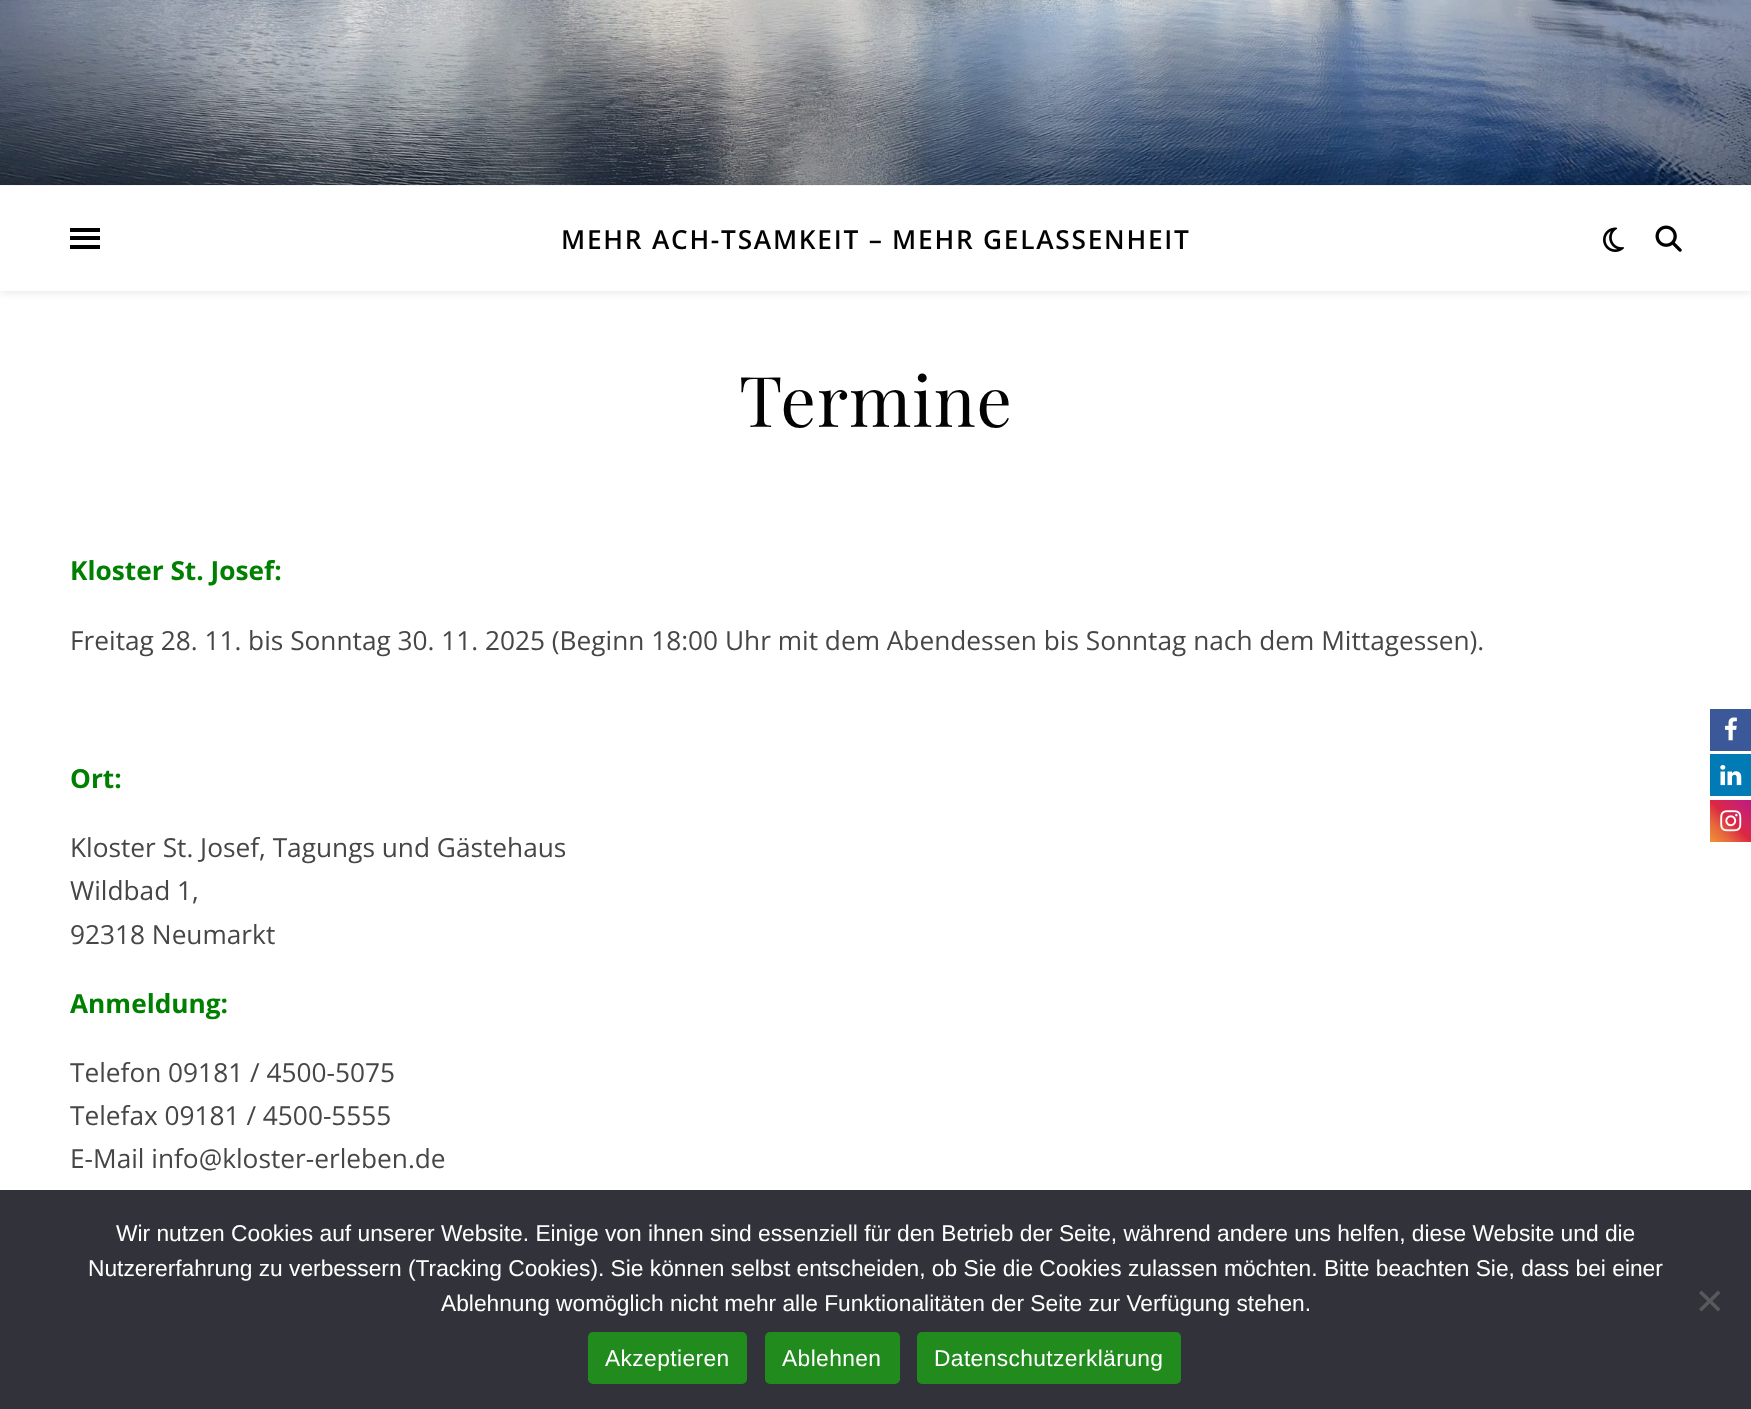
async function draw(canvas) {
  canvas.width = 1751;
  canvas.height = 1409;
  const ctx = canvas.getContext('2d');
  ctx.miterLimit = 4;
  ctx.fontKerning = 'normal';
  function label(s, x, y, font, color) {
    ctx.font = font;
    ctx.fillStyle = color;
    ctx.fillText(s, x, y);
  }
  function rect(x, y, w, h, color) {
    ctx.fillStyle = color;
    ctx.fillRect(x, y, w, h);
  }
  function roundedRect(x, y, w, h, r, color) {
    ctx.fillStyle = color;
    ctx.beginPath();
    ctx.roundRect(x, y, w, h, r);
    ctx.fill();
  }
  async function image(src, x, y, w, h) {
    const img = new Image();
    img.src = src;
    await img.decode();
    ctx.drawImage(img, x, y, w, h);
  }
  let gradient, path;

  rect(0, 0, 1751, 1409, '#fff');
  await image('assets/img1.png', 0, 0, 1751, 185);
  ctx.fillStyle = '#0000001a';
  ctx.filter = 'blur(4.5px)';
  ctx.beginPath();
  ctx.rect(0, 187, 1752, 105);
  ctx.fill();
  ctx.filter = 'none';
  rect(0, 186, 1751, 105, '#fff');
  rect(70, 228, 30, 4, '#000');
  rect(70, 236, 30, 4, '#000');
  rect(70, 245, 30, 4, '#000');
  ctx.letterSpacing = '1.75px';
  label('MEHR ACH-TSAMKEIT – MEHR GELASSENHEIT', 561, 249, '600 26.25px Open Sans', '#030303');
  await image('assets/img2.png', 1603, 227, 21, 25);
  await image('assets/img3.png', 1655, 225, 27, 27);
  ctx.letterSpacing = '1px';
  label('Termine', 739, 427, '70px Playfair Display', '#030303');
  ctx.letterSpacing = '0px';
  label('Kloster St. Josef:', 70, 580, 'bold 26.25px Open Sans', '#008000');
  label('Freitag 28. 11. bis Sonntag 30. 11. 2025 (Beginn 18:00 Uhr mit dem Abendessen bis Sonntag nach dem Mittagessen).', 70, 650, '26.25px Open Sans', '#464646');
  label('Ort:', 70, 788, 'bold 26.25px Open Sans', '#008000');
  label('Kloster St. Josef, Tagungs und Gästehaus', 70, 857, '26.25px Open Sans', '#464646');
  label('Wildbad 1,', 70, 900, '26.25px Open Sans', '#464646');
  label('92318 Neumarkt', 70, 944, '26.25px Open Sans', '#464646');
  label('Anmeldung:', 70, 1013, 'bold 26.25px Open Sans', '#008000');
  label('Telefon 09181 / 4500-5075', 70, 1082, '26.25px Open Sans', '#464646');
  label('Telefax 09181 / 4500-5555', 70, 1125, '26.25px Open Sans', '#464646');
  label('E-Mail info@kloster-erleben.de', 70, 1168, '26.25px Open Sans', '#464646');
  rect(1710, 709, 41, 42, '#3b5998');
  await image('assets/img4.png', 1725, 717, 12, 24);
  rect(1710, 754, 41, 42, '#007bb6');
  await image('assets/img5.png', 1720, 765, 22, 21);
  gradient = ctx.createLinearGradient(1710, 842, 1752, 800);
  gradient.addColorStop(0, '#f09433');
  gradient.addColorStop(0.25, '#e6683c');
  gradient.addColorStop(0.5, '#dc2743');
  gradient.addColorStop(0.75, '#cc2366');
  gradient.addColorStop(1, '#bc1888');
  ctx.fillStyle = gradient;
  ctx.fillRect(1710, 800, 41, 42);
  await image('assets/img6.png', 1720, 810, 22, 22);
  rect(0, 1190, 1751, 219, '#32323a');
  label('Wir nutzen Cookies auf unserer Website. Einige von ihnen sind essenziell für den Betrieb der Seite, während andere uns helfen, diese Website und die', 116, 1241, '22.75px Liberation Sans', '#fff');
  label('Nutzererfahrung zu verbessern (Tracking Cookies). Sie können selbst entscheiden, ob Sie die Cookies zulassen möchten. Bitte beachten Sie, dass bei einer', 88, 1276, '22.75px Liberation Sans', '#fff');
  label('Ablehnung womöglich nicht mehr alle Funktionalitäten der Seite zur Verfügung stehen.', 441, 1311, '22.75px Liberation Sans', '#fff');
  ctx.fillStyle = '#59595d';
  path = new Path2D('M1718 1290.5L1720.5 1293L1701.5 1311.5L1699 1309Z');
  ctx.fill(path);
  path = new Path2D('M1699 1293L1701.5 1290.5L1720.5 1309L1718 1311.5Z');
  ctx.fill(path);
  roundedRect(588, 1332, 159, 52, 5, '#218c1d');
  ctx.letterSpacing = '0.4px';
  label('Akzeptieren', 605, 1366, '22.75px Liberation Sans', '#fff');
  roundedRect(765, 1332, 135, 52, 5, '#218c1d');
  label('Ablehnen', 782, 1366, '22.75px Liberation Sans', '#fff');
  roundedRect(917, 1332, 264, 52, 5, '#218c1d');
  label('Datenschutzerklärung', 934, 1366, '22.75px Liberation Sans', '#fff');
}

draw(document.querySelector('canvas'));
